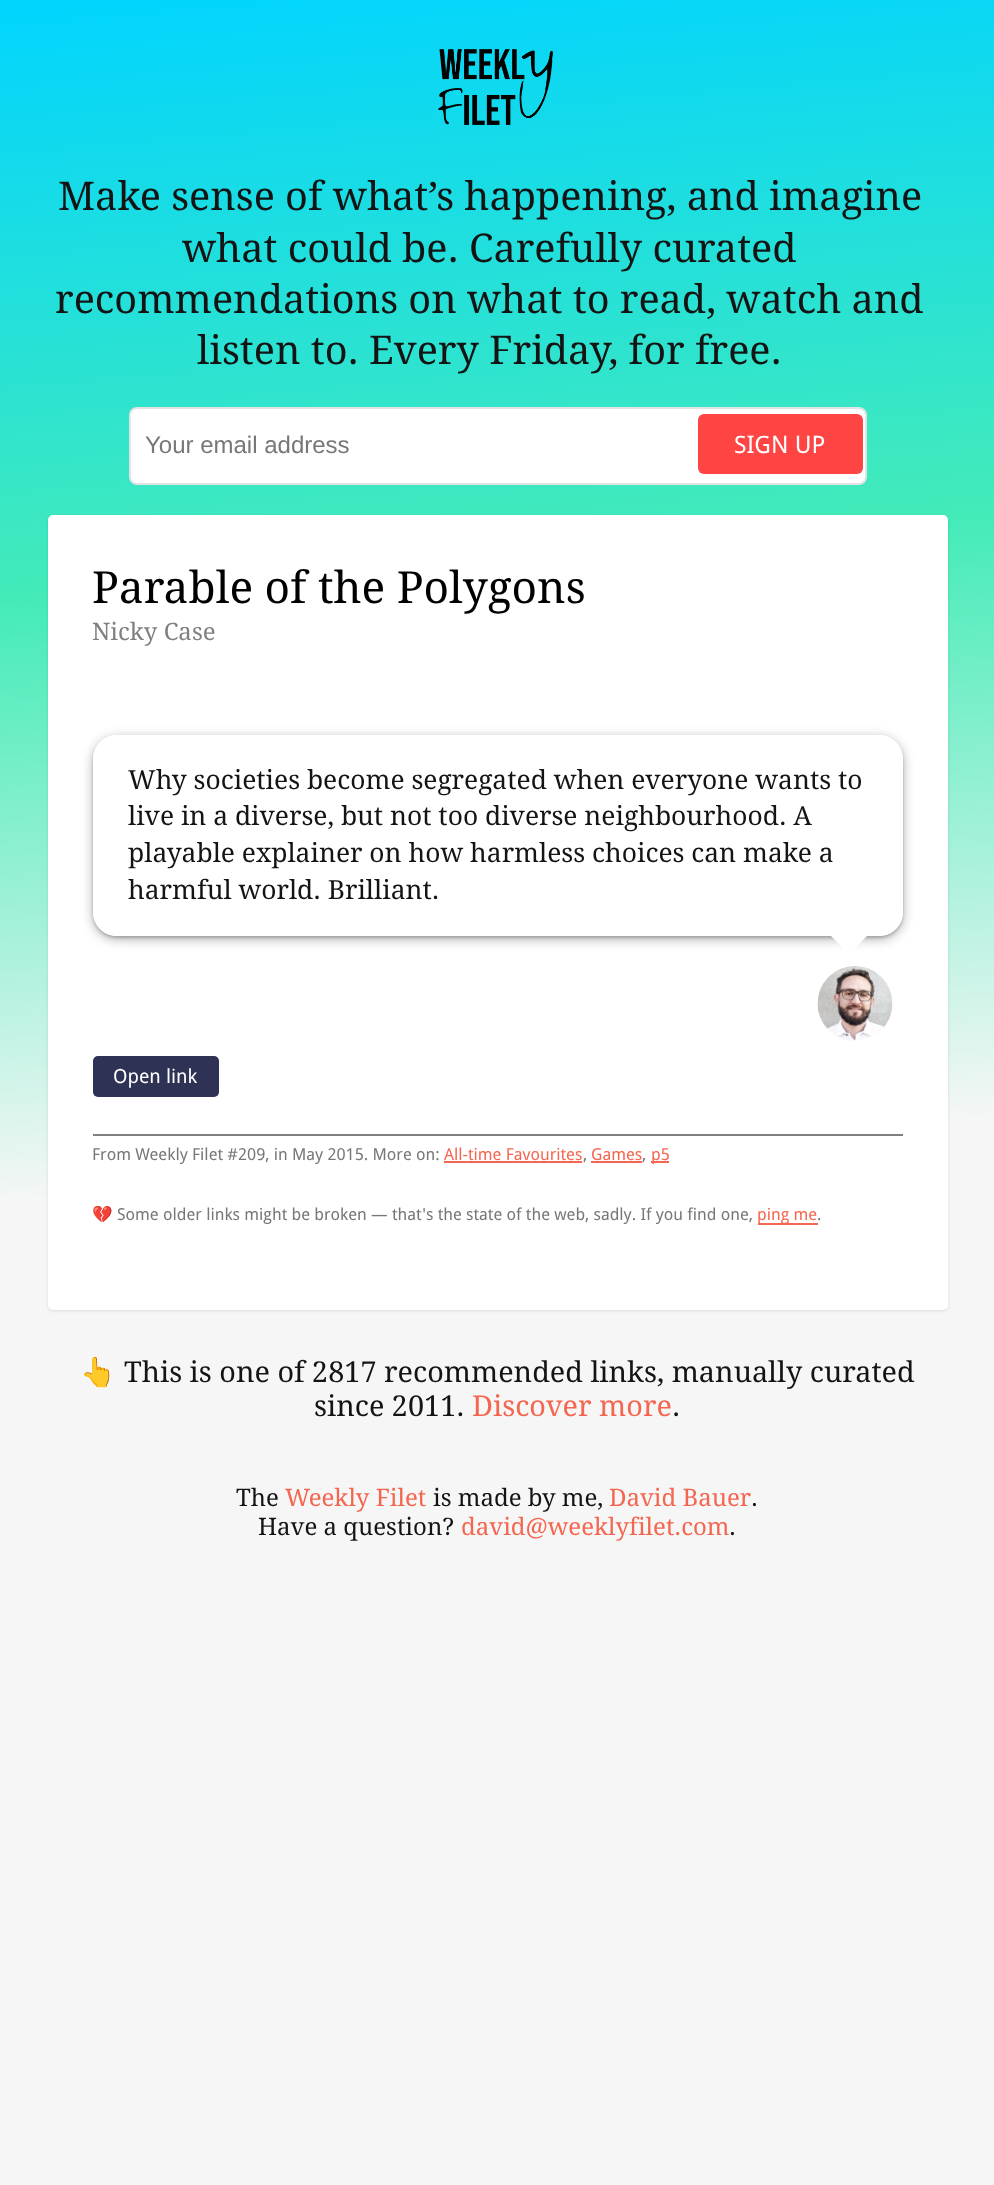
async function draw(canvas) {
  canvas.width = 994;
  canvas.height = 2185;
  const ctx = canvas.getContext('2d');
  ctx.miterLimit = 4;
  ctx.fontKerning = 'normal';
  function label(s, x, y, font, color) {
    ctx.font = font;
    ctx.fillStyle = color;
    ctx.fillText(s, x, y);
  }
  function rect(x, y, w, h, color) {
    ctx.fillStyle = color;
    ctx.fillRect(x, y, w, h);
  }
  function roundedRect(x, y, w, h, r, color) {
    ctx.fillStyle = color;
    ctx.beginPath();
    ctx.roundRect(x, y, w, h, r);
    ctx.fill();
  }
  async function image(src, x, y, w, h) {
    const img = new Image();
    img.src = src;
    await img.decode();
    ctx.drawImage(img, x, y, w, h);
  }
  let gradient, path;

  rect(0, 0, 994, 2185, '#f6f6f6');
  gradient = ctx.createLinearGradient(425, -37, 570, 1626);
  gradient.addColorStop(0, '#00d4ff');
  gradient.addColorStop(0.36, '#44ebb8');
  gradient.addColorStop(0.72, '#f6f6f6');
  ctx.fillStyle = gradient;
  ctx.fillRect(0, 0, 994, 1198);
  await image('assets/img1.png', 438, 49, 115, 76);
  label('Make sense of what’s happening, and imagine', 58, 210, '39.6px Droid Serif', '#141414');
  label('what could be. Carefully curated', 182, 262, '39.6px Droid Serif', '#141414');
  label('recommendations on what to read, watch and', 55, 313, '39.6px Droid Serif', '#141414');
  label('listen to. Every Friday, for free.', 197, 364, '39.6px Droid Serif', '#141414');
  ctx.fillStyle = '#fff';
  ctx.beginPath();
  ctx.roundRect(130, 408, 736, 76, 7);
  ctx.fill();
  ctx.strokeStyle = '#e3e3e3';
  ctx.lineWidth = 2;
  ctx.stroke();
  label('Your email address', 145, 453, '24px Liberation Sans', '#777');
  roundedRect(698, 414, 165, 60, 6, '#f44');
  label('SIGN UP', 734, 453, '24px Droid Sans', '#fff');
  ctx.fillStyle = '#0000001a';
  ctx.filter = 'blur(1.5px)';
  ctx.beginPath();
  ctx.roundRect(48, 516, 900, 795, 5);
  ctx.fill();
  ctx.filter = 'none';
  roundedRect(48, 515, 900, 795, 5, '#fff');
  label('Parable of the Polygons', 92, 603, '44.25px Droid Serif', '#000');
  label('Nicky Case', 92, 640, '24px Droid Serif', '#808080');
  ctx.save();
  path = new Path2D('M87 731H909V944H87ZM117 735H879C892.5 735 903 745.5 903 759V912C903 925.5 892.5 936 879 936H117C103.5 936 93 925.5 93 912V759C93 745.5 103.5 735 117 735Z');
  ctx.clip(path, 'evenodd');
  ctx.fillStyle = '#00000033';
  ctx.filter = 'blur(1.5px)';
  ctx.beginPath();
  ctx.roundRect(93, 737, 810, 201, 24);
  ctx.fill();
  ctx.filter = 'none';
  ctx.restore();
  ctx.save();
  path = new Path2D('M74 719H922V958H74ZM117 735H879C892.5 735 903 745.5 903 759V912C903 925.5 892.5 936 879 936H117C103.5 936 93 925.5 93 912V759C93 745.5 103.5 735 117 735Z');
  ctx.clip(path, 'evenodd');
  ctx.fillStyle = '#0000004d';
  ctx.filter = 'blur(6px)';
  ctx.beginPath();
  ctx.roundRect(93, 738, 810, 201, 24);
  ctx.fill();
  ctx.filter = 'none';
  ctx.restore();
  roundedRect(93, 735, 810, 201, 24, '#ffffffed');
  label('Why societies become segregated when everyone wants to', 128, 789, '26.4px Droid Serif', '#141414');
  label('live in a diverse, but not too diverse neighbourhood. A', 128, 825, '26.4px Droid Serif', '#141414');
  label('playable explainer on how harmless choices can make a', 128, 862, '26.4px Droid Serif', '#141414');
  label('harmful world. Brilliant.', 128, 899, '26.4px Droid Serif', '#141414');
  ctx.fillStyle = '#fff';
  path = new Path2D('M831 936H867L849 954Z');
  ctx.fill(path);
  await image('assets/img2.png', 817, 966, 76, 75);
  roundedRect(93, 1056, 126, 41, 5, '#2e3254');
  label('Open link', 113, 1083, '19.5px Droid Sans', '#fff');
  rect(93, 1134, 810, 2, '#808080');
  label('From Weekly Filet #209, in May 2015. More on:', 92, 1160, '16.5px Droid Sans', '#777');
  label('All-time Favourites', 444, 1160, '16.5px Droid Sans', '#f56650');
  label(',', 583, 1160, '16.5px Droid Sans', '#777');
  rect(444, 1161, 138, 2, '#f56650');
  label('Games', 591, 1160, '16.5px Droid Sans', '#f56650');
  label(',', 642, 1160, '16.5px Droid Sans', '#777');
  rect(591, 1161, 51, 2, '#f56650');
  rect(651, 1161, 18, 2, '#f56650');
  label('p5', 651, 1160, '16.5px Droid Sans', '#f56650');
  label('💔', 92, 1220, '16.5px Noto Color Emoji', '#777');
  label('Some older links might be broken — that\'s the state of the web, sadly. If you find one,', 117, 1220, '16.5px Droid Sans', '#777');
  rect(758, 1223, 60, 2, '#f56650');
  label('ping me', 757, 1220, '16.5px Droid Sans', '#f56650');
  label('.', 817, 1220, '16.5px Droid Sans', '#777');
  label('👆', 80, 1382, '28.8px Noto Color Emoji', '#141414');
  label('This is one of 2817 recommended links, manually curated', 124, 1382, '28.8px Droid Serif', '#141414');
  label('since 2011.', 314, 1416, '28.8px Droid Serif', '#141414');
  label('Discover more', 472, 1416, '28.8px Droid Serif', '#f56650');
  label('.', 672, 1416, '28.8px Droid Serif', '#141414');
  label('The', 236, 1506, '24px Droid Serif', '#141414');
  label('Weekly Filet', 285, 1506, '24px Droid Serif', '#f56650');
  label('is made by me,', 433, 1506, '24px Droid Serif', '#141414');
  label('David Bauer', 609, 1506, '24px Droid Serif', '#f56650');
  label('.', 751, 1506, '24px Droid Serif', '#141414');
  label('Have a question?', 258, 1535, '24px Droid Serif', '#141414');
  label('david@weeklyfilet.com', 461, 1535, '24px Droid Serif', '#f56650');
  label('.', 729, 1535, '24px Droid Serif', '#141414');
}

draw(document.querySelector('canvas'));
